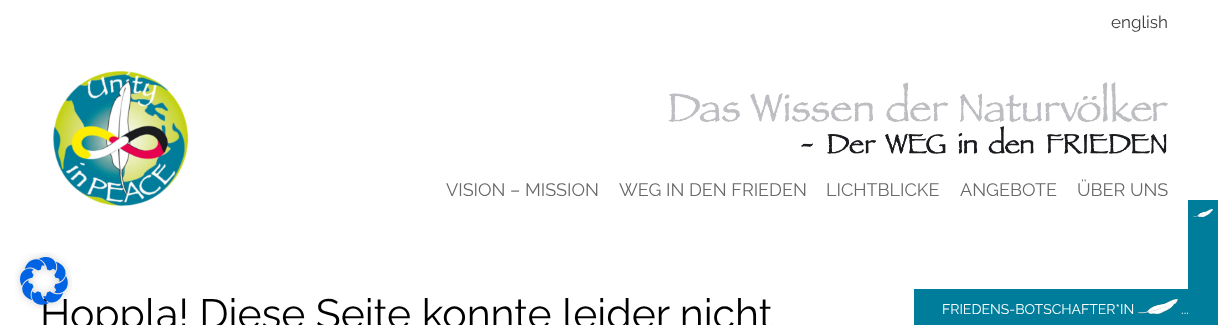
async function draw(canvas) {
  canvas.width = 1218;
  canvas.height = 325;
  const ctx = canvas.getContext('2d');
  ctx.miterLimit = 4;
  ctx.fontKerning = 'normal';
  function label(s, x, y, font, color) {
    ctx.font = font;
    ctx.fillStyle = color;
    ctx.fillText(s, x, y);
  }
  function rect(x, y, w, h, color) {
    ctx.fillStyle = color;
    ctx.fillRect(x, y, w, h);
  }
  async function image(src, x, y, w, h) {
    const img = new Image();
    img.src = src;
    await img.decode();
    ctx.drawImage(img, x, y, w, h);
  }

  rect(0, 0, 1218, 325, '#fff');
  label('english', 1111, 28, '17px Raleway', '#3a3a3a');
  await image('assets/img1.png', 668, 82, 500, 72);
  await image('assets/img2.png', 53, 71, 136, 136);
  label('VISION – MISSION', 446, 196, '18px Raleway', '#696868');
  label('WEG IN DEN FRIEDEN', 619, 196, '18px Raleway', '#696868');
  label('LICHTBLICKE', 826, 196, '18px Raleway', '#696868');
  label('ANGEBOTE', 960, 196, '18px Raleway', '#696868');
  label('ÜBER UNS', 1077, 196, '18px Raleway', '#696868');
  label('Hoppla! Diese Seite konnte leider nicht', 40, 328, '41px Raleway', '#000');
  await image('assets/img3.png', 15, 252, 57, 57);
  rect(914, 289, 274, 36, '#007d9b');
  label('...', 1181, 314, '14px Raleway', '#fff');
  rect(1188, 200, 30, 125, '#007d9b');
  await image('assets/img4.png', 1193, 209, 20, 8);
  label('FRIEDENS-BOTSCHAFTER*IN', 942, 314, '14px Raleway', '#fff');
  await image('assets/img5.png', 1138, 299, 40, 15);
}

draw(document.querySelector('canvas'));
